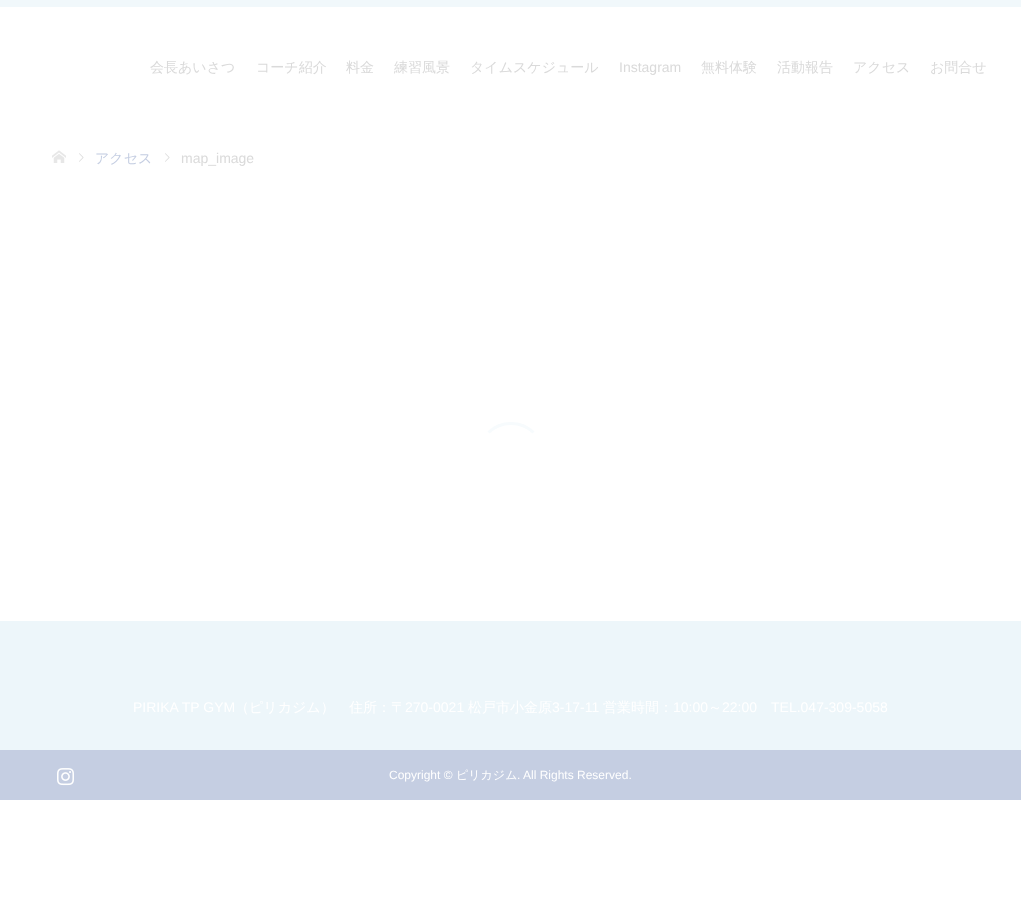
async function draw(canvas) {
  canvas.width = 1021;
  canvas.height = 910;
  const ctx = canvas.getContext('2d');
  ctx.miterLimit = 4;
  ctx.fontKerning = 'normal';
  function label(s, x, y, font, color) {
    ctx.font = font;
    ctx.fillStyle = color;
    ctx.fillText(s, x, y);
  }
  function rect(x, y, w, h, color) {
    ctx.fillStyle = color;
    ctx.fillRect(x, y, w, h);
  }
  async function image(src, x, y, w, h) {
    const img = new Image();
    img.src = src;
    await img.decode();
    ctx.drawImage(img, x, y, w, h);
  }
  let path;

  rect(0, 0, 1021, 910, '#fff');
  rect(0, 0, 1021, 7, '#f1f8fb');
  label('会長あいさつ', 150, 72, '500 14px WenQuanYi Zen Hei', '#dadada');
  label('コーチ紹介', 256, 72, '500 14px WenQuanYi Zen Hei', '#dadada');
  label('料金', 346, 72, '500 14px WenQuanYi Zen Hei', '#dadada');
  label('練習風景', 394, 72, '500 14px WenQuanYi Zen Hei', '#dadada');
  label('タイムスケジュール', 470, 72, '500 14px WenQuanYi Zen Hei', '#dadada');
  label('Instagram', 619, 72, '14px Liberation Sans', '#dadada');
  label('無料体験', 701, 72, '500 14px WenQuanYi Zen Hei', '#dadada');
  label('活動報告', 777, 72, '500 14px WenQuanYi Zen Hei', '#dadada');
  label('アクセス', 853, 72, '500 14px WenQuanYi Zen Hei', '#dadada');
  label('お問合せ', 930, 72, '500 14px WenQuanYi Zen Hei', '#dadada');
  await image('assets/img1.png', 52, 150, 14, 13);
  await image('assets/img2.png', 79, 153, 5, 9);
  label('アクセス', 95, 163, '500 14px WenQuanYi Zen Hei', '#c5cee2');
  await image('assets/img2.png', 165, 153, 5, 9);
  label('map_image', 181, 163, '14px Liberation Sans', '#dadada');
  rect(0, 621, 1021, 129, '#edf6fa');
  label('PIRIKA TP GYM', 133, 712, '14px Liberation Sans', '#fff');
  label('（ピリカジム）', 235, 712, '500 14px WenQuanYi Zen Hei', '#fff');
  label('住所：〒', 349, 712, '500 14px WenQuanYi Zen Hei', '#fff');
  label('270-0021', 405, 712, '14px Liberation Sans', '#fff');
  label('松戸市小金原', 468, 712, '500 14px WenQuanYi Zen Hei', '#fff');
  label('3-17-11', 552, 712, '14px Liberation Sans', '#fff');
  label('営業時間：', 603, 712, '500 14px WenQuanYi Zen Hei', '#fff');
  label('10:00', 673, 712, '14px Liberation Sans', '#fff');
  label('～', 708, 712, '500 14px WenQuanYi Zen Hei', '#fff');
  label('22:00', 722, 712, '14px Liberation Sans', '#fff');
  label('TEL.047-309-5058', 771, 712, '14px Liberation Sans', '#fff');
  rect(0, 750, 1021, 50, '#c5cee2');
  await image('assets/img3.png', 57, 768, 17, 18);
  label('Copyright ©', 389, 779, '12px Liberation Sans', '#fff');
  label('ピリカジム', 456, 779, '500 12px WenQuanYi Zen Hei', '#fff');
  label('. All Rights Reserved.', 517, 779, '12px Liberation Sans', '#fff');
  path = new Path2D('M488.5 432.5C501 420.5 521 420.5 533.5 432.5');
  ctx.strokeStyle = '#f7fbfd';
  ctx.lineWidth = 3;
  ctx.stroke(path);
}

draw(document.querySelector('canvas'));
